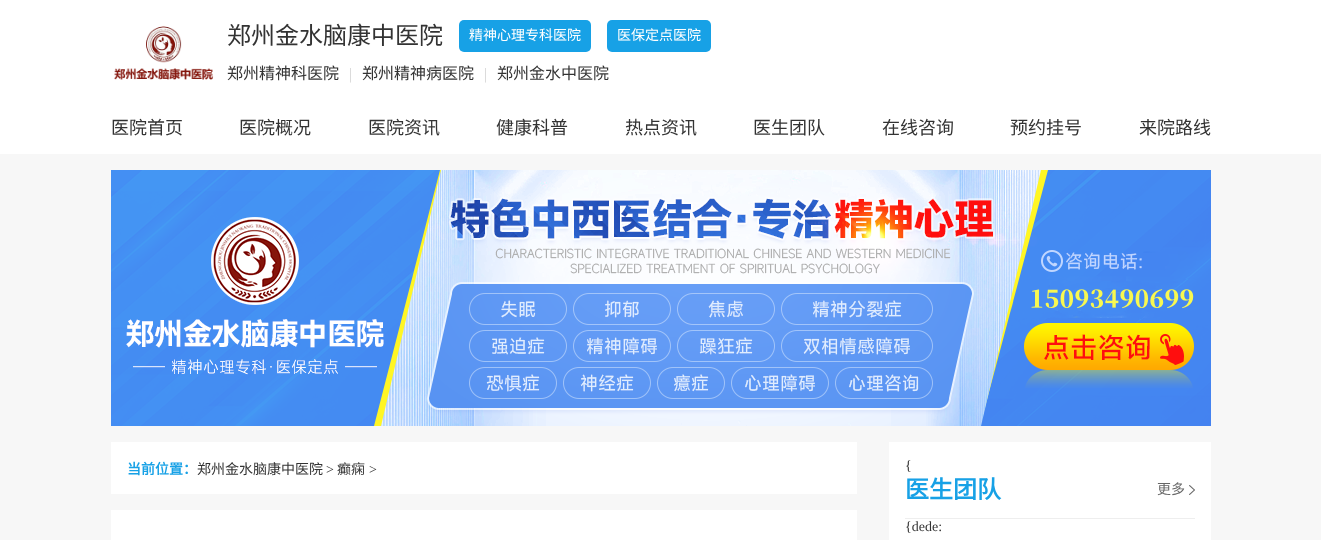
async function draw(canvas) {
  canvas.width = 1321;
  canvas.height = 540;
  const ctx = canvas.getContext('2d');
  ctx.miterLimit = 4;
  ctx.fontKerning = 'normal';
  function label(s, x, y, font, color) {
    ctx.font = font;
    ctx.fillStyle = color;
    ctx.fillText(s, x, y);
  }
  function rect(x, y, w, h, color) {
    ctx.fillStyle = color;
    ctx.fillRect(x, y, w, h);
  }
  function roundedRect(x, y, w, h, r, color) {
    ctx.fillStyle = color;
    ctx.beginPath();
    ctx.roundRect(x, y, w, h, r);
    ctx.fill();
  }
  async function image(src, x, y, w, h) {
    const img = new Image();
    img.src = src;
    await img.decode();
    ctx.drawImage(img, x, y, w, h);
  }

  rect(0, 0, 1321, 540, '#f7f7f7');
  rect(0, 0, 1321, 154, '#fff');
  await image('assets/img1.png', 114, 26, 100, 54);
  label('郑州金水脑康中医院', 227, 44, '24px Noto Sans CJK SC', '#333');
  roundedRect(459, 20, 132, 32, 5, '#17a1e6');
  label('精神心理专科医院', 469, 40, '14px Noto Sans CJK SC', '#fff');
  roundedRect(607, 20, 104, 32, 5, '#17a1e6');
  label('医保定点医院', 617, 40, '14px Noto Sans CJK SC', '#fff');
  label('郑州精神科医院', 227, 79, '16px Noto Sans CJK SC', '#333');
  label('|', 349, 79, '16px Liberation Serif', '#d3d3d3');
  label('郑州精神病医院', 362, 79, '16px Noto Sans CJK SC', '#333');
  label('|', 484, 79, '16px Liberation Serif', '#d3d3d3');
  label('郑州金水中医院', 497, 79, '16px Noto Sans CJK SC', '#333');
  label('医院首页', 111, 134, '18px Noto Sans CJK SC', '#333');
  label('医院概况', 239, 134, '18px Noto Sans CJK SC', '#333');
  label('医院资讯', 368, 134, '18px Noto Sans CJK SC', '#333');
  label('健康科普', 496, 134, '18px Noto Sans CJK SC', '#333');
  label('热点资讯', 625, 134, '18px Noto Sans CJK SC', '#333');
  label('医生团队', 753, 134, '18px Noto Sans CJK SC', '#333');
  label('在线咨询', 882, 134, '18px Noto Sans CJK SC', '#333');
  label('预约挂号', 1010, 134, '18px Noto Sans CJK SC', '#333');
  label('来院路线', 1139, 134, '18px Noto Sans CJK SC', '#333');
  await image('assets/img2.png', 111, 170, 1100, 256);
  rect(111, 442, 746, 52, '#fff');
  label('当前位置：', 127, 474, 'bold 14px Noto Sans CJK SC', '#17a1e6');
  label('郑州金水脑康中医院', 197, 474, '14px Noto Sans CJK SC', '#333');
  label('>', 326, 474, '14px Liberation Serif', '#333');
  label('癫痫', 337, 474, '14px Noto Sans CJK SC', '#333');
  label('>', 369, 474, '14px Liberation Serif', '#333');
  rect(111, 510, 746, 30, '#fff');
  rect(889, 442, 322, 98, '#fff');
  label('{', 905, 470, '14px Liberation Serif', '#333');
  rect(905, 518, 290, 1, '#eee');
  label('医生团队', 905, 498, 'bold 24px Noto Sans CJK SC', '#17a1e6');
  await image('assets/img3.png', 1189, 485, 6, 10);
  label('更多', 1157, 494, '14px Noto Sans CJK SC', '#666');
  label('{dede:', 905, 531, '14px Liberation Serif', '#333');
}

draw(document.querySelector('canvas'));
